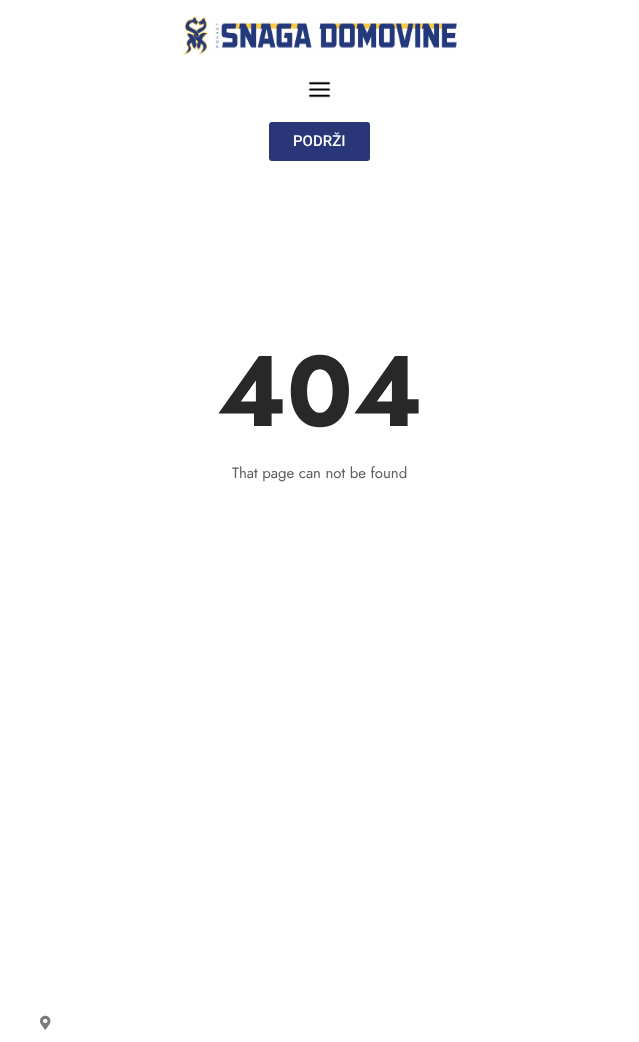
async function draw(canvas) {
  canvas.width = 639;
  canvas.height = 1042;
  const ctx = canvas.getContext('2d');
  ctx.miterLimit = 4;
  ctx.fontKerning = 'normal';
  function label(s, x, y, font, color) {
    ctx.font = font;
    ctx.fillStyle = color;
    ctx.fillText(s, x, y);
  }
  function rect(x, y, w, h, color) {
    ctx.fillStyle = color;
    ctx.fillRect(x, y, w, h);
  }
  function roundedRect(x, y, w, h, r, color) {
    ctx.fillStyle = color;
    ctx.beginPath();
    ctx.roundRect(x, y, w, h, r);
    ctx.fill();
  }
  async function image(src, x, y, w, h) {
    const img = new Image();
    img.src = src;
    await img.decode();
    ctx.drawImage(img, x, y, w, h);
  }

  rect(0, 0, 639, 1042, '#fff');
  await image('assets/img1.png', 183, 16, 274, 40);
  await image('assets/img2.png', 308, 81, 23, 17);
  roundedRect(269, 122, 101, 39, 3, '#293677');
  label('PODRŽI', 293, 146, '500 15px Roboto', '#fff');
  label('404', 217, 426, 'bold 100px Jost', '#282828');
  label('That page can not be found', 232, 478, '15px Jost', '#5c5c5c');
  await image('assets/img3.png', 40, 1015, 11, 15);
}

draw(document.querySelector('canvas'));
